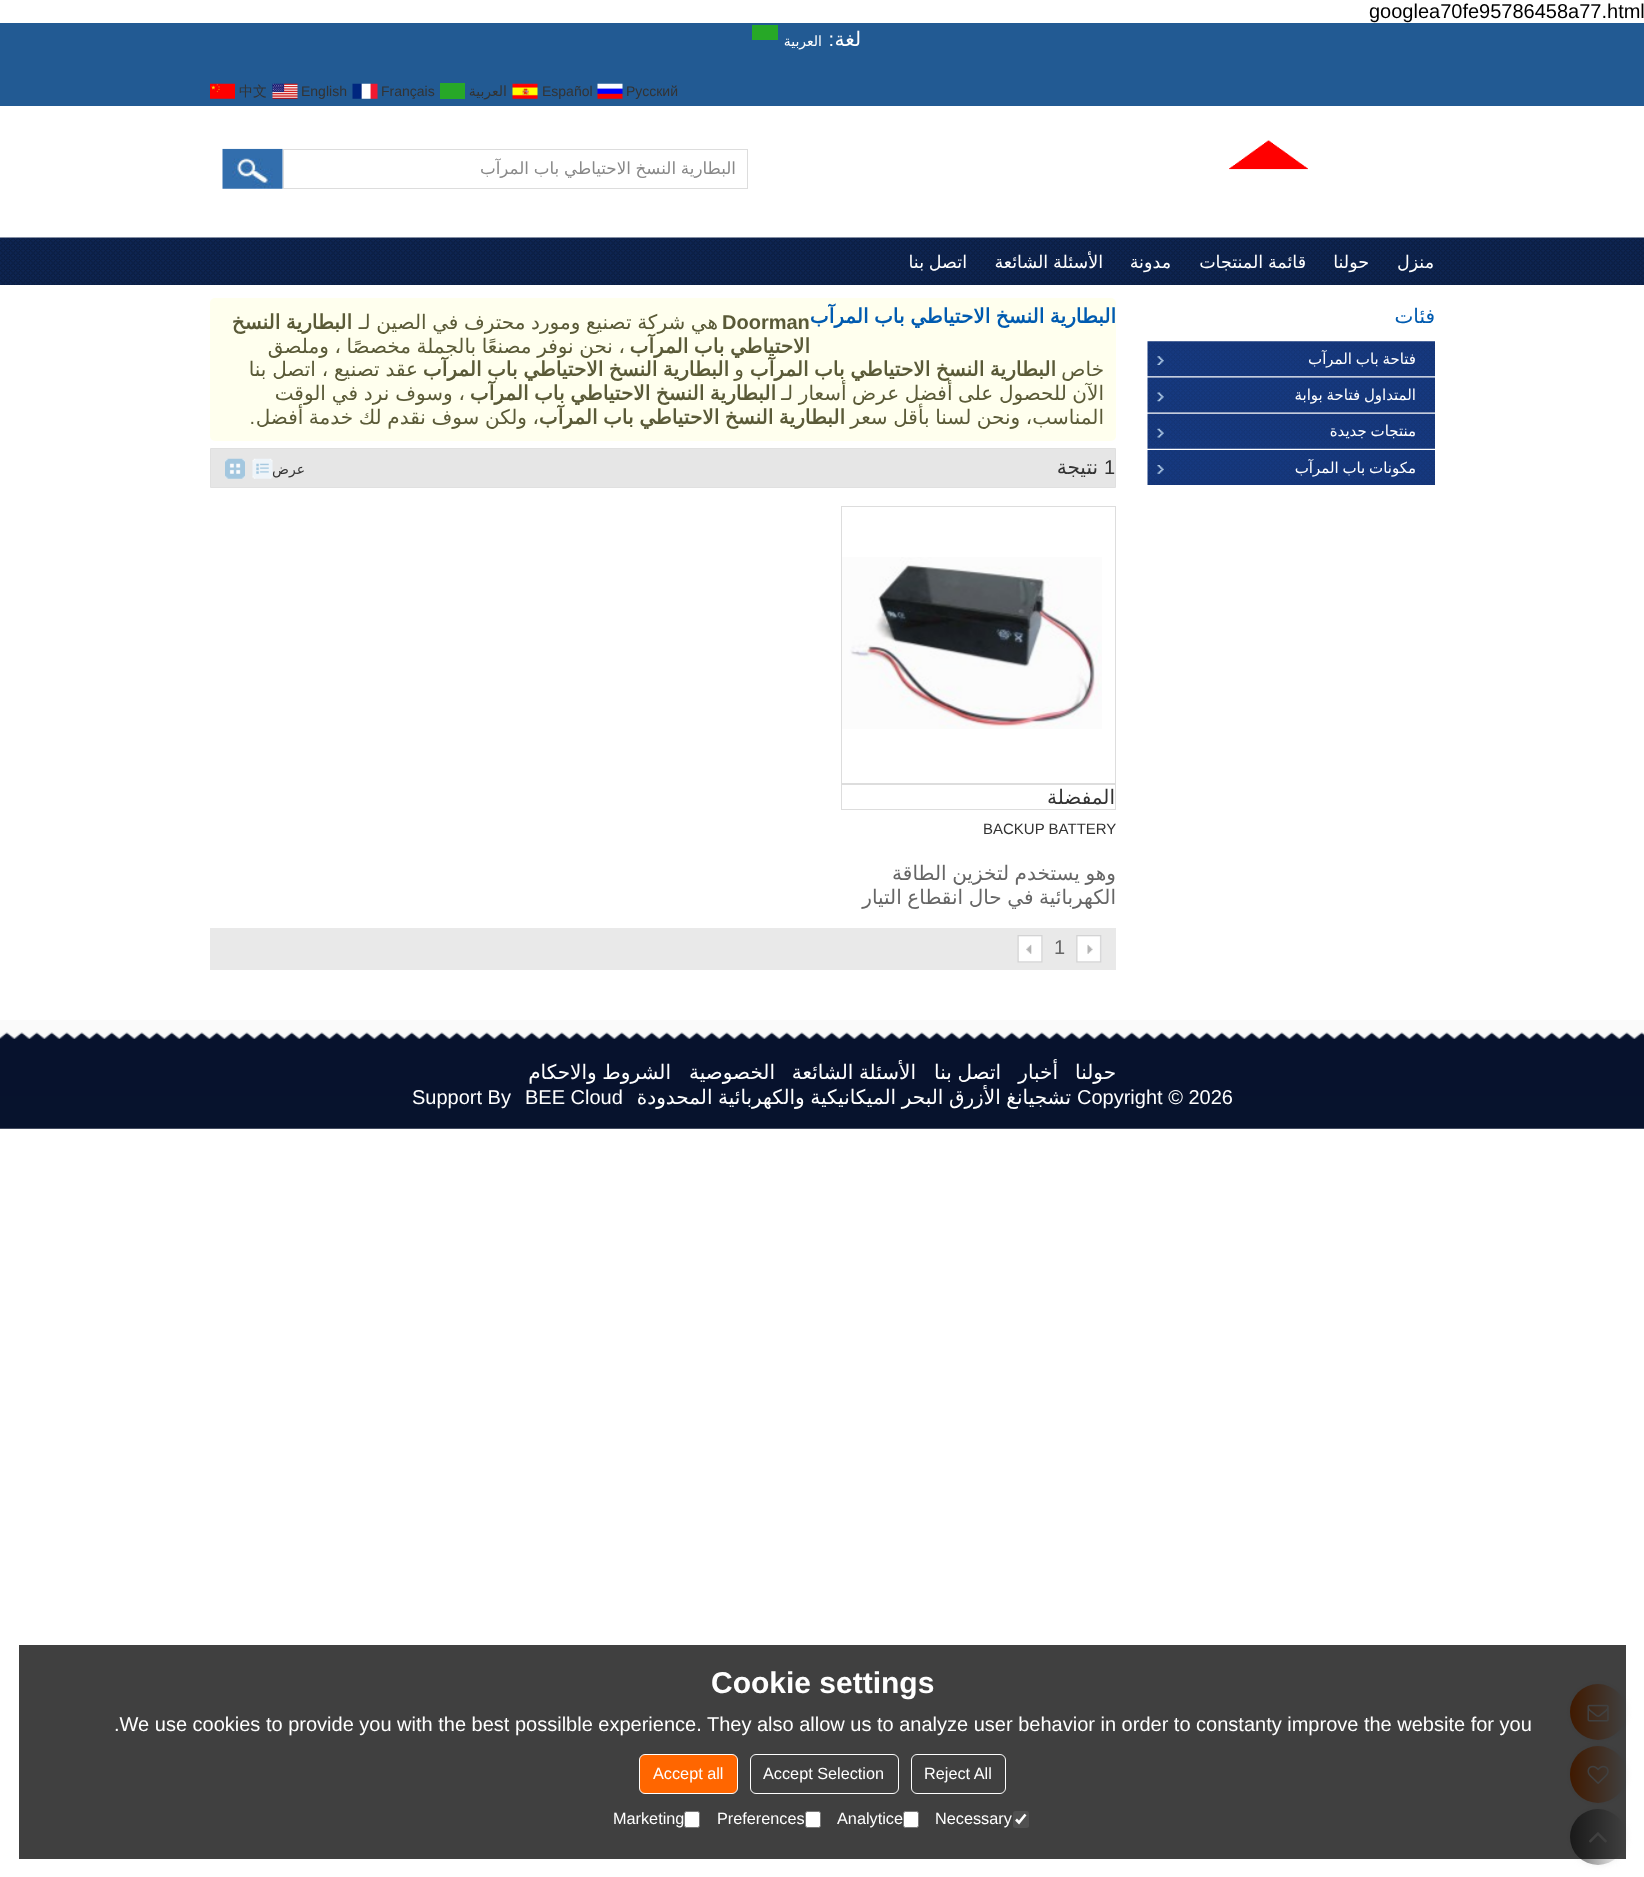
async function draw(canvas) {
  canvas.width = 1644;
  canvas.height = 1877;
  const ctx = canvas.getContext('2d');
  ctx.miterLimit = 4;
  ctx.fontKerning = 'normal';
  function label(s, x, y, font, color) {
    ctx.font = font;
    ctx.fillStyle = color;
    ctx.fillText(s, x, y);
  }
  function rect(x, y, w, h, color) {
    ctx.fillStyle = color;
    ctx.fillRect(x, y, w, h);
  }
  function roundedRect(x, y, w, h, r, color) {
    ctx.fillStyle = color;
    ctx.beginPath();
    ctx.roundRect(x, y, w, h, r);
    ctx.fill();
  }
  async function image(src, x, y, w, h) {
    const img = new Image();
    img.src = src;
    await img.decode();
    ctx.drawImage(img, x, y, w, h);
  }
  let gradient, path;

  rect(0, 0, 1644, 1877, '#fff');
  label('googlea70fe95786458a77.html', 1369, 18, '20px Liberation Sans', '#000');
  rect(0, 23, 1644, 83, '#225a93');
  ctx.direction = 'rtl';
  label('لغة', 861, 46, '20px DejaVu Sans', '#fff');
  label(':', 834, 46, '20px Liberation Sans', '#fff');
  rect(752, 25, 26, 15, '#27a827');
  label('العربية', 822, 46, '14px DejaVu Sans', '#fff');
  ctx.direction = 'ltr';
  label('Русский', 626, 96, '14px Liberation Sans', '#333');
  await image('assets/img1.png', 597, 83, 26, 16);
  label('Español', 542, 96, '14px Liberation Sans', '#333');
  await image('assets/img2.png', 512, 83, 26, 16);
  ctx.direction = 'rtl';
  label('العربية', 507, 96, '14px DejaVu Sans', '#333');
  rect(440, 83, 25, 16, '#27a827');
  ctx.direction = 'ltr';
  label('Français', 381, 96, '14px Liberation Sans', '#333');
  await image('assets/img3.png', 352, 83, 26, 16);
  label('English', 301, 96, '14px Liberation Sans', '#333');
  await image('assets/img4.png', 272, 83, 26, 16);
  label('中文', 239, 96, '500 14px WenQuanYi Zen Hei', '#333');
  await image('assets/img5.png', 210, 83, 25, 16);
  await image('assets/img6.png', 1229, 140, 79, 30);
  ctx.strokeStyle = '#ddd';
  ctx.strokeRect(283.5, 149.5, 464, 39);
  ctx.wordSpacing = '-0.5px';
  ctx.direction = 'rtl';
  label('البطارية النسخ الاحتياطي باب المرآب', 736, 174, '16.7px DejaVu Sans', '#888');
  await image('assets/img7.png', 222, 148, 61, 41);
  await image('assets/img8.png', 0, 237, 1644, 48);
  ctx.wordSpacing = '0px';
  label('منزل', 1434, 268, '17.5px DejaVu Sans', '#fff');
  label('حولنا', 1369, 268, '17.5px DejaVu Sans', '#fff');
  ctx.wordSpacing = '-0.75px';
  label('قائمة المنتجات', 1306, 268, '17.5px DejaVu Sans', '#fff');
  ctx.wordSpacing = '0px';
  label('مدونة', 1171, 268, '17.5px DejaVu Sans', '#fff');
  ctx.wordSpacing = '-0.75px';
  label('الأسئلة الشائعة', 1103, 268, '17.5px DejaVu Sans', '#fff');
  label('اتصل بنا', 967, 268, '17.5px DejaVu Sans', '#fff');
  ctx.wordSpacing = '0px';
  label('فئات', 1435, 323, '20px DejaVu Sans', '#005bb0');
  await image('assets/img9.png', 1147, 341, 288, 36);
  await image('assets/img10.png', 1157, 356, 7, 9);
  ctx.save();
  ctx.beginPath();
  ctx.rect(1148, 341, 268, 37);
  ctx.clip();
  ctx.wordSpacing = '-1px';
  label('فتاحة باب المرآب', 1416, 364, '15px DejaVu Sans', '#fff');
  ctx.restore();
  await image('assets/img11.png', 1147, 377, 288, 36);
  await image('assets/img12.png', 1157, 392, 7, 10);
  ctx.wordSpacing = '-1px';
  label('المتداول فتاحة بوابة', 1416, 400, '15px DejaVu Sans', '#fff');
  await image('assets/img13.png', 1147, 413, 288, 36);
  await image('assets/img14.png', 1157, 428, 7, 10);
  label('منتجات جديدة', 1416, 436, '15px DejaVu Sans', '#fff');
  await image('assets/img15.png', 1147, 450, 288, 35);
  await image('assets/img16.png', 1157, 465, 7, 9);
  label('مكونات باب المرآب', 1416, 473, '15px DejaVu Sans', '#fff');
  roundedRect(210, 298, 906, 143, 5, '#ffe');
  ctx.save();
  ctx.beginPath();
  ctx.rect(810, 298, 306, 37);
  ctx.clip();
  ctx.wordSpacing = '-0.75px';
  label('البطارية النسخ الاحتياطي باب المرآب', 1116, 323, 'bold 20px DejaVu Sans', '#005bb0');
  ctx.restore();
  ctx.wordSpacing = '0px';
  ctx.direction = 'ltr';
  label('Doorman', 722, 329, 'bold 20px Liberation Sans', '#5a5a37');
  ctx.wordSpacing = '-0.75px';
  ctx.direction = 'rtl';
  label('هي شركة تصنيع ومورد محترف في الصين لـ', 718, 329, '20px DejaVu Sans', '#5a5a37');
  label('البطارية النسخ', 352, 329, 'bold 20px DejaVu Sans', '#5a5a37');
  label('الاحتياطي باب المرآب', 810, 353, 'bold 20px DejaVu Sans', '#5a5a37');
  label('، نحن نوفر مصنعًا بالجملة مخصصًا ، وملصق', 625, 353, '20px DejaVu Sans', '#5a5a37');
  ctx.wordSpacing = '0px';
  label('خاص', 1104, 376, '20px DejaVu Sans', '#5a5a37');
  ctx.wordSpacing = '-0.75px';
  label('البطارية النسخ الاحتياطي باب المرآب', 1056, 376, 'bold 20px DejaVu Sans', '#5a5a37');
  ctx.wordSpacing = '0px';
  label('و', 744, 376, '20px DejaVu Sans', '#5a5a37');
  ctx.wordSpacing = '-0.75px';
  label('البطارية النسخ الاحتياطي باب المرآب', 729, 376, 'bold 20px DejaVu Sans', '#5a5a37');
  ctx.wordSpacing = '-0.5px';
  label('عقد تصنيع ، اتصل بنا', 418, 376, '20px DejaVu Sans', '#5a5a37');
  ctx.wordSpacing = '-0.75px';
  label('الآن للحصول على أفضل عرض أسعار لـ', 1104, 400, '20px DejaVu Sans', '#5a5a37');
  label('البطارية النسخ الاحتياطي باب المرآب', 776, 400, 'bold 20px DejaVu Sans', '#5a5a37');
  ctx.wordSpacing = '-0.5px';
  label('، وسوف نرد في الوقت', 465, 400, '20px DejaVu Sans', '#5a5a37');
  ctx.wordSpacing = '-0.75px';
  label('المناسب، ونحن لسنا بأقل سعر', 1104, 424, '20px DejaVu Sans', '#5a5a37');
  label('البطارية النسخ الاحتياطي باب المرآب', 845, 424, 'bold 20px DejaVu Sans', '#5a5a37');
  label('، ولكن سوف نقدم لك خدمة أفضل', 539, 424, '20px DejaVu Sans', '#5a5a37');
  ctx.wordSpacing = '0px';
  label('.', 255, 424, '20px Liberation Sans', '#5a5a37');
  ctx.fillStyle = '#e6e6e6';
  ctx.beginPath();
  ctx.rect(210.5, 448.5, 905, 39);
  ctx.fill();
  ctx.strokeStyle = '#e0e0e0';
  ctx.stroke();
  ctx.direction = 'ltr';
  label('1', 1104, 474, '20px Liberation Sans', '#333');
  ctx.direction = 'rtl';
  label('نتيجة', 1098, 474, '20px DejaVu Sans', '#333');
  label('عرض', 305, 474, '14px DejaVu Sans', '#333');
  await image('assets/img17.png', 252, 458, 21, 21);
  await image('assets/img18.png', 225, 458, 20, 21);
  ctx.strokeStyle = '#ddd';
  ctx.strokeRect(841.5, 506.5, 274, 277);
  await image('assets/img19.png', 842, 557, 260, 172);
  ctx.strokeRect(841.5, 784.5, 274, 25);
  label('المفضلة', 1115, 804, '20px DejaVu Sans', '#333');
  ctx.direction = 'ltr';
  label('BACKUP BATTERY', 983, 834, '15px Liberation Sans', '#333');
  ctx.save();
  ctx.beginPath();
  ctx.rect(841, 861, 275, 54);
  ctx.clip();
  ctx.wordSpacing = '-0.75px';
  ctx.direction = 'rtl';
  label('وهو يستخدم لتخزين الطاقة', 1116, 880, '20px DejaVu Sans', '#666');
  label('الكهربائية في حال انقطاع التيار', 1116, 904, '20px DejaVu Sans', '#666');
  ctx.restore();
  rect(210, 928, 906, 42, '#e9e9e9');
  await image('assets/img20.png', 1076, 935, 26, 28);
  label('1', 1054, 954, '20px Liberation Sans', '#666');
  await image('assets/img21.png', 1017, 935, 26, 28);
  await image('assets/img22.png', 0, 1020, 1644, 109);
  ctx.direction = 'rtl';
  label('حولنا', 1116, 1079, '20px DejaVu Sans', '#fff');
  label('أخبار', 1058, 1079, '20px DejaVu Sans', '#fff');
  ctx.wordSpacing = '-0.75px';
  label('اتصل بنا', 1001, 1079, '20px DejaVu Sans', '#fff');
  label('الأسئلة الشائعة', 916, 1079, '20px DejaVu Sans', '#fff');
  ctx.wordSpacing = '0px';
  label('الخصوصية', 775, 1079, '20px DejaVu Sans', '#fff');
  ctx.wordSpacing = '-0.75px';
  label('الشروط والاحكام', 671, 1079, '20px DejaVu Sans', '#fff');
  ctx.wordSpacing = '0px';
  ctx.direction = 'ltr';
  label('Copyright © 2026', 1077, 1104, '20px Liberation Sans', '#fff');
  ctx.wordSpacing = '-0.75px';
  ctx.direction = 'rtl';
  label('تشجيانغ الأزرق البحر الميكانيكية والكهربائية المحدودة', 1071, 1104, '20px DejaVu Sans', '#fff');
  ctx.wordSpacing = '0px';
  ctx.direction = 'ltr';
  label('BEE Cloud', 525, 1104, '20px Liberation Sans', '#fff');
  label('Support By', 412, 1104, '20px Liberation Sans', '#fff');
  ctx.fillStyle = '#eee';
  ctx.filter = 'blur(3px)';
  ctx.beginPath();
  ctx.roundRect(1570, 1684, 56, 56, 28);
  ctx.fill();
  ctx.filter = 'none';
  gradient = ctx.createLinearGradient(1570, 1712, 1626, 1712);
  gradient.addColorStop(0, '#f60');
  gradient.addColorStop(1, '#fff');
  ctx.fillStyle = gradient;
  ctx.beginPath();
  ctx.arc(1598, 1712, 28, 0, 2 * Math.PI);
  ctx.fill();
  await image('assets/img23.png', 1587, 1704, 22, 18);
  ctx.fillStyle = '#eee';
  ctx.filter = 'blur(3px)';
  ctx.beginPath();
  ctx.roundRect(1570, 1746, 56, 57, 28);
  ctx.fill();
  ctx.filter = 'none';
  gradient = ctx.createLinearGradient(1570, 1774, 1626, 1774);
  gradient.addColorStop(0, '#f60');
  gradient.addColorStop(1, '#fff');
  ctx.fillStyle = gradient;
  ctx.beginPath();
  ctx.roundRect(1570, 1746, 56, 57, 28);
  ctx.fill();
  await image('assets/img24.png', 1587, 1765, 22, 19);
  ctx.fillStyle = '#eee';
  ctx.filter = 'blur(3px)';
  ctx.beginPath();
  ctx.roundRect(1570, 1809, 56, 56, 28);
  ctx.fill();
  ctx.filter = 'none';
  gradient = ctx.createLinearGradient(1570, 1837, 1626, 1837);
  gradient.addColorStop(0, '#666');
  gradient.addColorStop(1, '#fff');
  ctx.fillStyle = gradient;
  ctx.beginPath();
  ctx.arc(1598, 1837, 28, 0, 2 * Math.PI);
  ctx.fill();
  await image('assets/img25.png', 1589, 1832, 18, 11);
  rect(19, 1645, 1607, 214, '#000000bf');
  label('Cookie settings', 711, 1693, 'bold 30px Liberation Sans', '#fff');
  label('.We use cookies to provide you with the best possilble experience. They also allow us to analyze user behavior in order to constanty improve the website for you', 114, 1731, '20px Liberation Sans', '#fff');
  ctx.beginPath();
  ctx.roundRect(911.5, 1754.5, 94, 39, 5.5);
  ctx.strokeStyle = '#fff';
  ctx.stroke();
  label('Reject All', 924, 1779, '16.25px Liberation Sans', '#fff');
  ctx.beginPath();
  ctx.roundRect(750.5, 1754.5, 148, 39, 5.5);
  ctx.stroke();
  label('Accept Selection', 763, 1779, '16.25px Liberation Sans', '#fff');
  ctx.fillStyle = '#f60';
  ctx.beginPath();
  ctx.roundRect(639.5, 1754.5, 98, 39, 5.5);
  ctx.fill();
  ctx.stroke();
  label('Accept all', 653, 1779, '16.25px Liberation Sans', '#fff');
  roundedRect(1013, 1811, 16, 17, 2.5, '#505050');
  path = new Path2D('M1016 1819.5L1019 1822.5L1025.5 1814.5');
  ctx.lineWidth = 2.6;
  ctx.stroke(path);
  label('Necessary', 935, 1824, '16.25px Liberation Sans', '#fff');
  ctx.beginPath();
  ctx.roundRect(903.5, 1811.5, 15, 16, 2);
  ctx.fill();
  ctx.strokeStyle = '#767676';
  ctx.lineWidth = 1;
  ctx.stroke();
  label('Analytice', 837, 1824, '16.25px Liberation Sans', '#fff');
  ctx.beginPath();
  ctx.roundRect(805.5, 1811.5, 15, 16, 2);
  ctx.fill();
  ctx.stroke();
  label('Preferences', 717, 1824, '16.25px Liberation Sans', '#fff');
  ctx.beginPath();
  ctx.roundRect(684.5, 1811.5, 15, 16, 2);
  ctx.fill();
  ctx.stroke();
  label('Marketing', 613, 1824, '16.25px Liberation Sans', '#fff');
}

draw(document.querySelector('canvas'));
